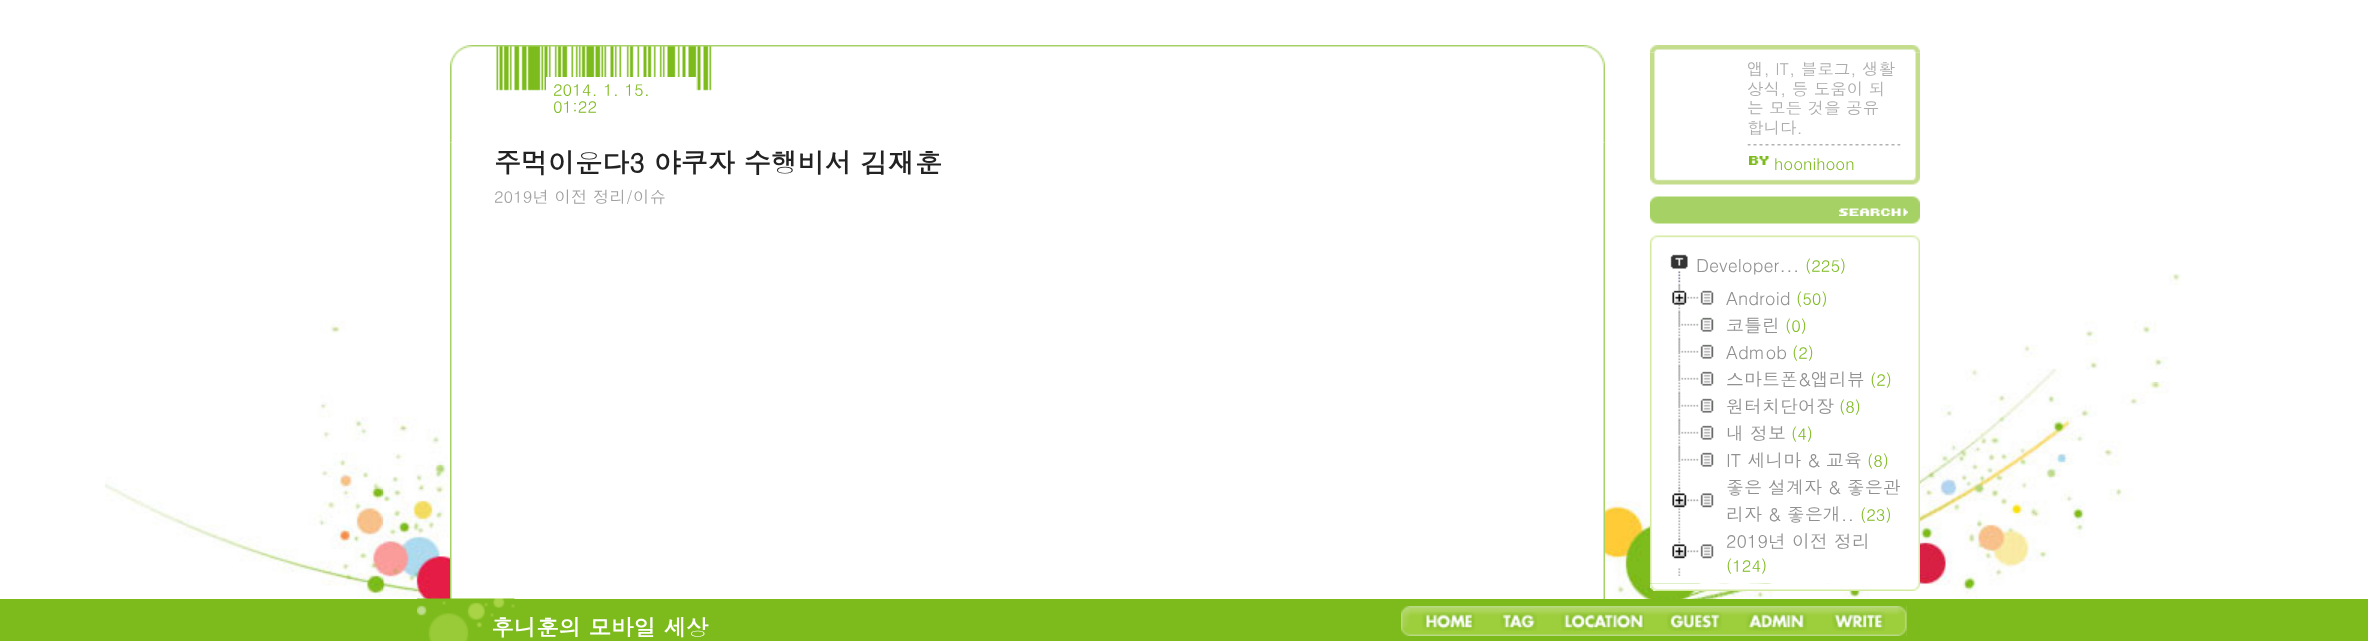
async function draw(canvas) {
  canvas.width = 2368;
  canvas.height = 641;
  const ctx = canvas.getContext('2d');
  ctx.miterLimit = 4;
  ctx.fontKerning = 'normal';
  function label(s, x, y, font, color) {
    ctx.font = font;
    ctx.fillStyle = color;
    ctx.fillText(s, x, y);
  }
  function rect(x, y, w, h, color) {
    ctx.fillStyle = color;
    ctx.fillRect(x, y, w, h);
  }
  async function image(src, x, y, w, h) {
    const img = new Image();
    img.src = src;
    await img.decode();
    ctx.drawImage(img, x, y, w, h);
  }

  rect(0, 0, 2368, 641, '#fff');
  await image('assets/img1.png', 105, 273, 2076, 326);
  await image('assets/img2.png', 450, 45, 1155, 98);
  rect(546, 77, 150, 14, '#fff');
  label('2014. 1. 15.', 553, 96, '16.5px Dotum', '#7eba1e');
  label('01:22', 553, 113, '16.5px Dotum', '#7eba1e');
  await image('assets/img3.png', 450, 142, 1155, 457);
  label('주먹이운다3 야쿠자 수행비서 김재훈', 494, 173, 'bold 27px Dotum', '#222');
  label('2019년 이전 정리/이슈', 494, 203, '16.5px Dotum', '#9f9f9f');
  await image('assets/img4.png', 1650, 45, 270, 8);
  await image('assets/img5.png', 1650, 52, 270, 125);
  await image('assets/img6.png', 1747, 144, 154, 2);
  label('앱, IT, 블로그, 생활', 1747, 75, '16.5px Dotum', '#acacac');
  label('상식, 등 도움이 되', 1747, 95, '16.5px Dotum', '#acacac');
  label('는 모든 것을 공유', 1747, 114, '16.5px Dotum', '#acacac');
  label('합니다.', 1747, 134, '16.5px Dotum', '#acacac');
  await image('assets/img7.png', 1749, 156, 20, 9);
  label('hoonihoon', 1774, 170, '16.5px Dotum', '#7eba1e');
  await image('assets/img8.png', 1650, 177, 270, 8);
  await image('assets/img9.png', 1650, 196, 270, 28);
  await image('assets/img10.png', 1839, 208, 69, 8);
  await image('assets/img11.png', 1650, 235, 270, 8);
  await image('assets/img12.png', 1650, 243, 270, 341);
  await image('assets/img13.png', 1670, 254, 18, 29);
  label('Developer...', 1696, 272, '18px Dotum', '#909090');
  label('(225)', 1805, 272, '16.5px Dotum', '#7eba1e');
  await image('assets/img14.png', 1678, 283, 3, 28);
  await image('assets/img15.png', 1672, 285, 42, 20);
  label('Android', 1726, 305, '18px Dotum', '#909090');
  label('(50)', 1796, 305, '16.5px Dotum', '#7eba1e');
  await image('assets/img16.png', 1678, 310, 3, 28);
  await image('assets/img17.png', 1678, 312, 36, 20);
  label('코틀린', 1726, 332, '18px Dotum', '#909090');
  label('(0)', 1785, 332, '16.5px Dotum', '#7eba1e');
  await image('assets/img16.png', 1678, 337, 3, 28);
  await image('assets/img17.png', 1678, 339, 36, 20);
  label('Admob', 1726, 359, '18px Dotum', '#909090');
  label('(2)', 1792, 359, '16.5px Dotum', '#7eba1e');
  await image('assets/img16.png', 1678, 364, 3, 28);
  await image('assets/img17.png', 1678, 366, 36, 20);
  label('스마트폰&앱리뷰', 1726, 386, '18px Dotum', '#909090');
  label('(2)', 1870, 386, '16.5px Dotum', '#7eba1e');
  await image('assets/img16.png', 1678, 391, 3, 28);
  await image('assets/img17.png', 1678, 393, 36, 20);
  label('원터치단어장', 1726, 413, '18px Dotum', '#909090');
  label('(8)', 1839, 413, '16.5px Dotum', '#7eba1e');
  await image('assets/img16.png', 1678, 418, 3, 28);
  await image('assets/img17.png', 1678, 420, 36, 20);
  label('내 정보', 1726, 440, '18px Dotum', '#909090');
  label('(4)', 1791, 440, '16.5px Dotum', '#7eba1e');
  await image('assets/img16.png', 1678, 445, 3, 28);
  await image('assets/img17.png', 1678, 447, 36, 20);
  label('IT 세니마 & 교육', 1726, 467, '18px Dotum', '#909090');
  label('(8)', 1867, 467, '16.5px Dotum', '#7eba1e');
  await image('assets/img18.png', 1678, 472, 3, 55);
  await image('assets/img19.png', 1672, 487, 42, 21);
  label('좋은 설계자 & 좋은관', 1726, 494, '18px Dotum', '#909090');
  label('리자 & 좋은개..', 1726, 521, '18px Dotum', '#909090');
  label('(23)', 1860, 521, '16.5px Dotum', '#7eba1e');
  await image('assets/img20.png', 1678, 526, 3, 50);
  await image('assets/img21.png', 1672, 538, 42, 21);
  label('2019년 이전 정리', 1726, 548, '18px Dotum', '#909090');
  label('(124)', 1726, 572, '16.5px Dotum', '#7eba1e');
  await image('assets/img22.png', 1650, 583, 270, 8);
  rect(0, 599, 2368, 42, '#7dbb1c');
  await image('assets/img23.png', 417, 598, 98, 43);
  label('후니훈의 모바일 세상', 491, 636, 'bold 22.5px Dotum', '#fff');
  await image('assets/img24.png', 1410, 606, 497, 30);
  await image('assets/img25.png', 1401, 606, 9, 30);
  await image('assets/img26.png', 1422, 612, 53, 19);
  await image('assets/img27.png', 1500, 612, 37, 19);
  await image('assets/img28.png', 1561, 612, 83, 19);
  await image('assets/img29.png', 1667, 612, 55, 19);
  await image('assets/img30.png', 1746, 612, 61, 19);
  await image('assets/img31.png', 1832, 611, 53, 20);
  await image('assets/img32.png', 1897, 606, 10, 30);
}

draw(document.querySelector('canvas'));
